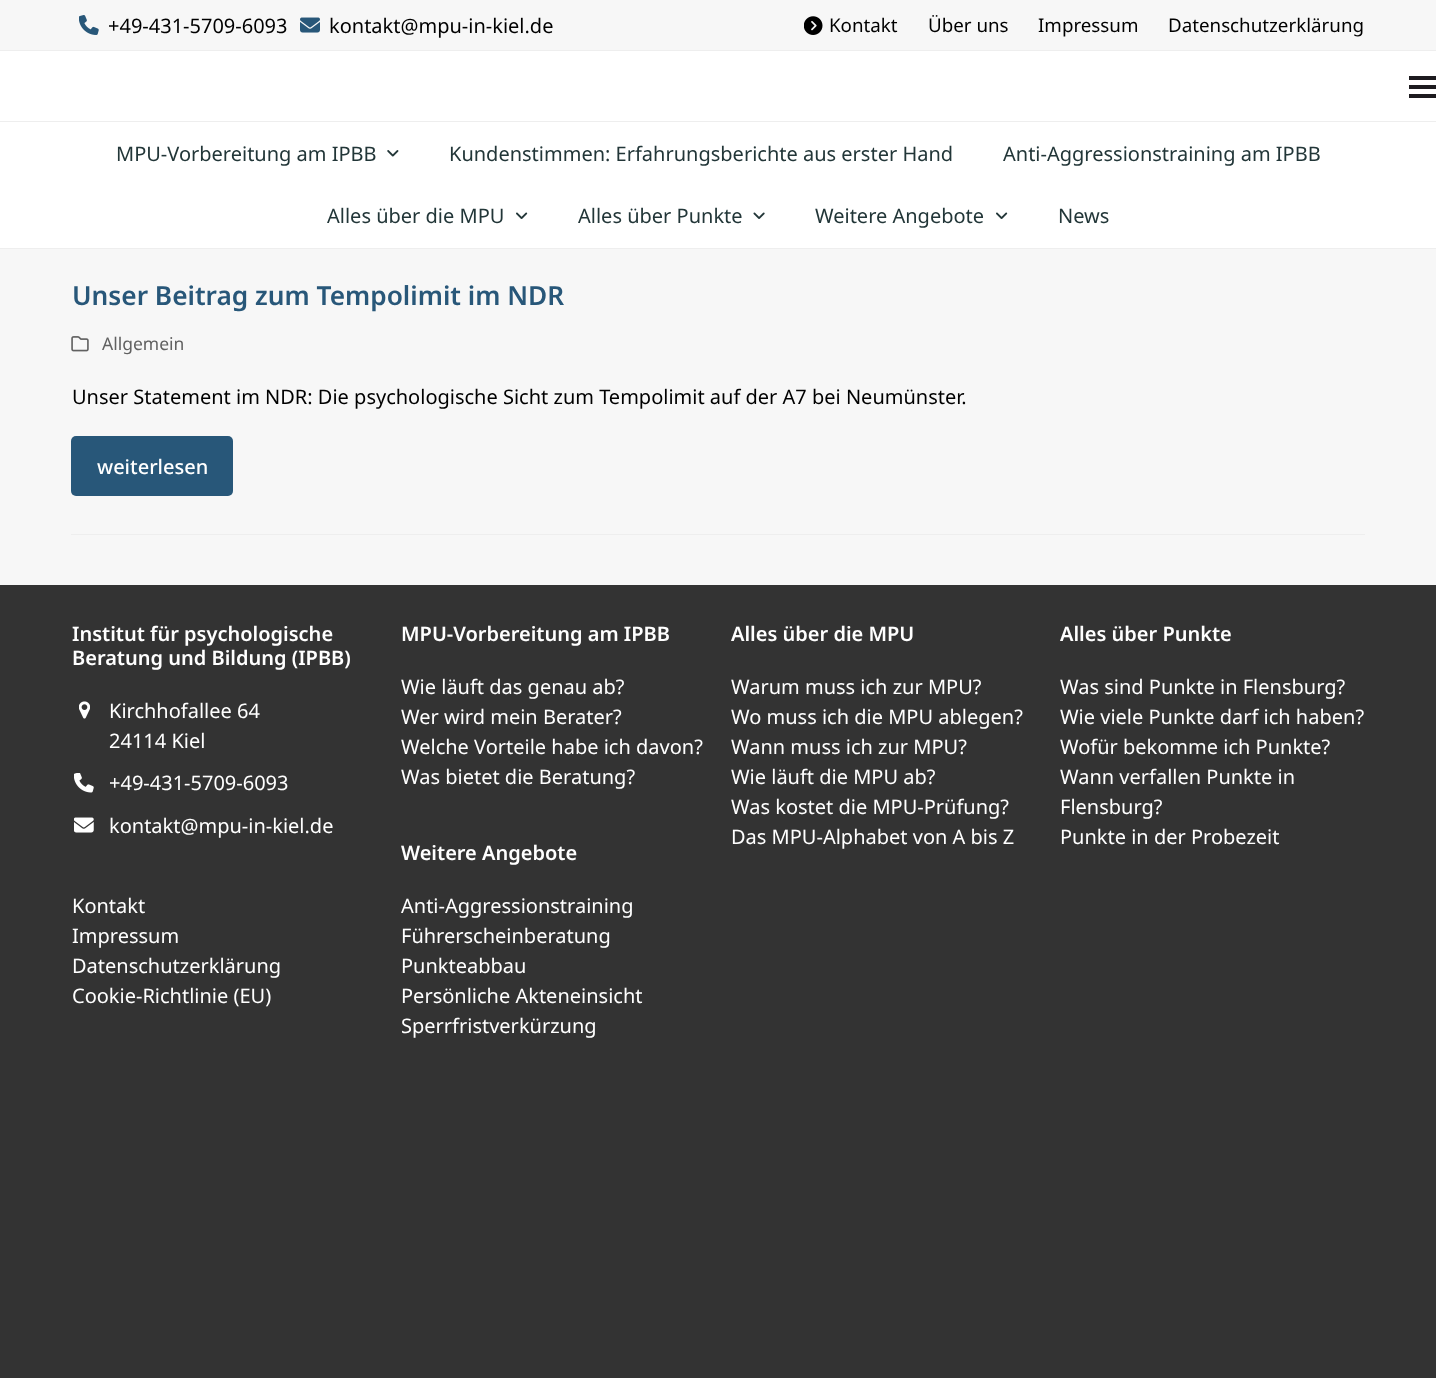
async function draw(canvas) {
  canvas.width = 1436;
  canvas.height = 1378;
  const ctx = canvas.getContext('2d');
  ctx.miterLimit = 4;
  ctx.fontKerning = 'normal';
  function label(s, x, y, font, color) {
    ctx.font = font;
    ctx.fillStyle = color;
    ctx.fillText(s, x, y);
  }
  function rect(x, y, w, h, color) {
    ctx.fillStyle = color;
    ctx.fillRect(x, y, w, h);
  }
  function roundedRect(x, y, w, h, r, color) {
    ctx.fillStyle = color;
    ctx.beginPath();
    ctx.roundRect(x, y, w, h, r);
    ctx.fill();
  }
  async function image(src, x, y, w, h) {
    const img = new Image();
    img.src = src;
    await img.decode();
    ctx.drawImage(img, x, y, w, h);
  }

  rect(0, 0, 1436, 1378, '#f7f7f7');
  rect(0, 50, 1436, 1, '#eee');
  await image('assets/img1.png', 79, 15, 20, 20);
  label('+49-431-5709-6093', 108, 33, '20px Noto Sans', '#000');
  await image('assets/img2.png', 300, 17, 20, 16);
  label('kontakt@mpu-in-kiel.de', 329, 33, '20px Noto Sans', '#000');
  await image('assets/img3.png', 804, 16, 19, 19);
  label('Kontakt', 829, 32, '18.75px Noto Sans', '#000');
  label('Über uns', 928, 32, '18.75px Noto Sans', '#000');
  label('Impressum', 1038, 32, '18.75px Noto Sans', '#000');
  label('Datenschutzerklärung', 1168, 32, '18.75px Noto Sans', '#000');
  rect(0, 51, 1436, 197, '#fff');
  rect(1409, 85, 27, 4, '#1d1b1f');
  rect(1409, 76, 27, 4, '#1d1b1f');
  rect(1409, 94, 27, 4, '#1d1b1f');
  rect(0, 121, 1436, 1, '#eee');
  rect(0, 248, 1436, 1, '#eee');
  label('MPU-Vorbereitung am IPBB', 116, 161, '20px Noto Sans', '#223638');
  await image('assets/img4.png', 387, 150, 12, 7);
  label('Kundenstimmen: Erfahrungsberichte aus erster Hand', 449, 161, '20px Noto Sans', '#223638');
  label('Anti-Aggressionstraining am IPBB', 1003, 161, '20px Noto Sans', '#223638');
  label('Alles über die MPU', 327, 223, '20px Noto Sans', '#223638');
  await image('assets/img5.png', 516, 212, 12, 7);
  label('Alles über Punkte', 578, 223, '20px Noto Sans', '#223638');
  await image('assets/img6.png', 753, 212, 12, 7);
  label('Weitere Angebote', 815, 223, '20px Noto Sans', '#223638');
  await image('assets/img5.png', 996, 212, 12, 7);
  label('News', 1058, 223, '20px Noto Sans', '#223638');
  label('Unser Beitrag zum Tempolimit im NDR', 72, 305, '600 26.25px Noto Sans', '#285779');
  await image('assets/img7.png', 71, 336, 18, 16);
  label('Allgemein', 102, 350, '17.5px Noto Sans', '#616161');
  label('Unser Statement im NDR: Die psychologische Sicht zum Tempolimit auf der A7 bei Neumünster.', 72, 404, '20px Noto Sans', '#000');
  roundedRect(71, 436, 162, 60, 5, '#285779');
  label('weiterlesen', 97, 474, '500 20px Noto Sans', '#fff');
  rect(71, 534, 1294, 1, '#eee');
  rect(0, 585, 1436, 793, '#333');
  label('Institut für psychologische', 72, 641, '600 20px Noto Sans', '#fff');
  label('Beratung und Bildung (IPBB)', 72, 665, '600 20px Noto Sans', '#fff');
  await image('assets/img8.png', 79, 701, 11, 18);
  label('Kirchhofallee 64', 109, 718, '20px Noto Sans', '#fff');
  label('24114 Kiel', 109, 748, '20px Noto Sans', '#fff');
  await image('assets/img9.png', 74, 773, 20, 20);
  label('+49-431-5709-6093', 109, 790, '20px Noto Sans', '#fff');
  await image('assets/img10.png', 74, 817, 20, 16);
  label('kontakt@mpu-in-kiel.de', 109, 833, '20px Noto Sans', '#fff');
  label('Kontakt', 72, 913, '20px Noto Sans', '#fff');
  label('Impressum', 72, 943, '20px Noto Sans', '#fff');
  label('Datenschutzerklärung', 72, 973, '20px Noto Sans', '#fff');
  label('Cookie-Richtlinie (EU)', 72, 1003, '20px Noto Sans', '#fff');
  label('MPU-Vorbereitung am IPBB', 401, 641, '600 20px Noto Sans', '#fff');
  label('Wie läuft das genau ab?', 401, 694, '20px Noto Sans', '#fff');
  label('Wer wird mein Berater?', 401, 724, '20px Noto Sans', '#fff');
  label('Welche Vorteile habe ich davon?', 401, 754, '20px Noto Sans', '#fff');
  label('Was bietet die Beratung?', 401, 784, '20px Noto Sans', '#fff');
  label('Weitere Angebote', 401, 860, '600 20px Noto Sans', '#fff');
  label('Anti-Aggressionstraining', 401, 913, '20px Noto Sans', '#fff');
  label('Führerscheinberatung', 401, 943, '20px Noto Sans', '#fff');
  label('Punkteabbau', 401, 973, '20px Noto Sans', '#fff');
  label('Persönliche Akteneinsicht', 401, 1003, '20px Noto Sans', '#fff');
  label('Sperrfristverkürzung', 401, 1033, '20px Noto Sans', '#fff');
  label('Alles über die MPU', 731, 641, '600 20px Noto Sans', '#fff');
  label('Warum muss ich zur MPU?', 731, 694, '20px Noto Sans', '#fff');
  label('Wo muss ich die MPU ablegen?', 731, 724, '20px Noto Sans', '#fff');
  label('Wann muss ich zur MPU?', 731, 754, '20px Noto Sans', '#fff');
  label('Wie läuft die MPU ab?', 731, 784, '20px Noto Sans', '#fff');
  label('Was kostet die MPU-Prüfung?', 731, 814, '20px Noto Sans', '#fff');
  label('Das MPU-Alphabet von A bis Z', 731, 844, '20px Noto Sans', '#fff');
  label('Alles über Punkte', 1060, 641, '600 20px Noto Sans', '#fff');
  label('Was sind Punkte in Flensburg?', 1060, 694, '20px Noto Sans', '#fff');
  label('Wie viele Punkte darf ich haben?', 1060, 724, '20px Noto Sans', '#fff');
  label('Wofür bekomme ich Punkte?', 1060, 754, '20px Noto Sans', '#fff');
  label('Wann verfallen Punkte in', 1060, 784, '20px Noto Sans', '#fff');
  label('Flensburg?', 1060, 814, '20px Noto Sans', '#fff');
  label('Punkte in der Probezeit', 1060, 844, '20px Noto Sans', '#fff');
}

draw(document.querySelector('canvas'));
